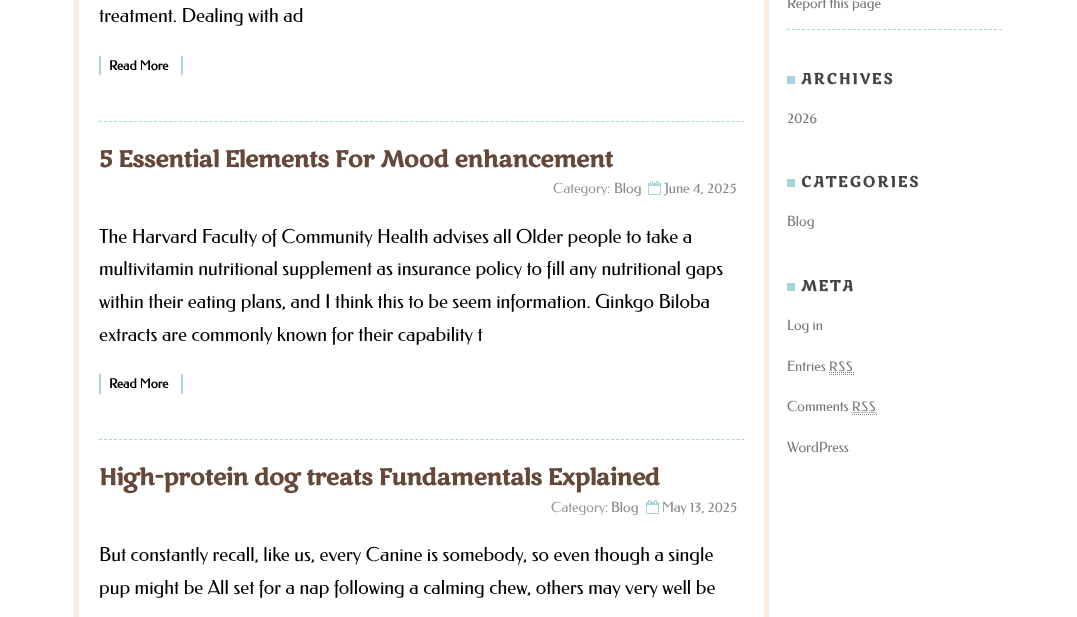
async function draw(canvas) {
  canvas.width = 1077;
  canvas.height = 617;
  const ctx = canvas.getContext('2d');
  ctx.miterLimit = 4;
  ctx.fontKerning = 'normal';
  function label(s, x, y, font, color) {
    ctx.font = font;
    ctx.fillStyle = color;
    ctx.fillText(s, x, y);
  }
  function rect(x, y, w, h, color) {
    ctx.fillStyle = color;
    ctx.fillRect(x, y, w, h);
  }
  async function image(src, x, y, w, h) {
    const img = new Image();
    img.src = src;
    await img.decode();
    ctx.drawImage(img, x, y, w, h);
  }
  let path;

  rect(0, 0, 1077, 617, '#fff');
  ctx.strokeStyle = '#ffeae0';
  ctx.lineWidth = 5;
  ctx.strokeRect(76.5, -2.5, 690, 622);
  label('treatment. Dealing with ad', 99, 22, '19.2px Federo', '#000');
  ctx.fillStyle = '#a6d5db';
  path = new Path2D('M183 74V57C183 56.5 182.5 56 182 55.5L181 56V75L182 75.5C182.5 75 183 74.5 183 74Z');
  ctx.fill(path);
  path = new Path2D('M101 56L100 55.5C99.5 56 99 56.5 99 57V74C99 74.5 99.5 75 100 75.5L101 75Z');
  ctx.fill(path);
  label('Read More', 109, 70, 'bold 13px Federo', '#000');
  path = new Path2D('M99 121.5H744');
  ctx.strokeStyle = '#a6d5db';
  ctx.lineWidth = 1;
  ctx.setLineDash([3, 2.02]);
  ctx.stroke(path);
  ctx.letterSpacing = '-0.6px';
  label('5 Essential Elements For Mood enhancement', 99, 167, 'bold 23px Marko One', '#654839');
  ctx.letterSpacing = '0px';
  label('Category:', 553, 193, '14px Federo', '#999');
  label('Blog', 614, 193, '14px Federo', '#888');
  await image('assets/img1.png', 648, 181, 13, 14);
  label('June 4, 2025', 664, 193, '14px Federo', '#888');
  label('The Harvard Faculty of Community Health advises all Older people to take a', 99, 243, '19.2px Federo', '#000');
  label('multivitamin nutritional supplement as insurance policy to fill any nutritional gaps', 99, 275, '19.2px Federo', '#000');
  label('within their eating plans, and I think this to be seem information. Ginkgo Biloba', 99, 308, '19.2px Federo', '#000');
  label('extracts are commonly known for their capability t', 99, 341, '19.2px Federo', '#000');
  ctx.fillStyle = '#a6d5db';
  path = new Path2D('M183 393V375C183 374.5 182.5 374 182 373.5L181 374V394L182 394.5C182.5 394 183 393.5 183 393Z');
  ctx.fill(path);
  path = new Path2D('M101 374L100 373.5C99.5 374 99 374.5 99 375V393C99 393.5 99.5 394 100 394.5L101 394Z');
  ctx.fill(path);
  label('Read More', 109, 388, 'bold 13px Federo', '#000');
  path = new Path2D('M99 439.5H744');
  ctx.stroke(path);
  ctx.letterSpacing = '-0.6px';
  label('High-protein dog treats Fundamentals Explained', 99, 485, 'bold 23px Marko One', '#654839');
  ctx.letterSpacing = '0px';
  label('Category:', 551, 512, '14px Federo', '#999');
  label('Blog', 611, 512, '14px Federo', '#888');
  await image('assets/img1.png', 646, 500, 13, 14);
  label('May 13, 2025', 662, 512, '14px Federo', '#888');
  label('But constantly recall, like us, every Canine is somebody, so even though a single', 99, 561, '19.2px Federo', '#000');
  label('pup might be All set for a nap following a calming chew, others may very well be', 99, 594, '19.2px Federo', '#000');
  path = new Path2D('M787 29.5H1002');
  ctx.setLineDash([3, 2.05]);
  ctx.stroke(path);
  label('Report this page', 787, 8, '14px Federo', '#777');
  rect(787, 76, 8, 8, '#a6d5db');
  ctx.letterSpacing = '2px';
  label('ARCHIVES', 801, 84, 'bold 15px Marko One', '#444');
  ctx.letterSpacing = '0px';
  label('2026', 787, 123, '14px Federo', '#777');
  rect(787, 179, 8, 8, '#a6d5db');
  ctx.letterSpacing = '2px';
  label('CATEGORIES', 801, 187, 'bold 15px Marko One', '#444');
  ctx.letterSpacing = '0px';
  label('Blog', 787, 226, '14px Federo', '#777');
  rect(787, 283, 8, 8, '#a6d5db');
  ctx.letterSpacing = '2px';
  label('META', 801, 291, 'bold 15px Marko One', '#444');
  ctx.letterSpacing = '0px';
  label('Log in', 787, 330, '14px Federo', '#777');
  label('Entries', 787, 371, '14px Federo', '#777');
  ctx.letterSpacing = '1px';
  label('RSS', 829, 371, '13px Federo', '#777');
  path = new Path2D('M829 374.5H854');
  ctx.strokeStyle = '#818a91';
  ctx.setLineDash([1, 1]);
  ctx.stroke(path);
  path = new Path2D('M829 372.5H854');
  ctx.strokeStyle = '#777';
  ctx.stroke(path);
  ctx.letterSpacing = '0px';
  label('Comments', 787, 411, '14px Federo', '#777');
  ctx.letterSpacing = '1px';
  label('RSS', 852, 411, '13px Federo', '#777');
  path = new Path2D('M852 414.5H877');
  ctx.strokeStyle = '#818a91';
  ctx.stroke(path);
  path = new Path2D('M851.5 412.5H876.5');
  ctx.strokeStyle = '#777';
  ctx.stroke(path);
  ctx.letterSpacing = '0px';
  label('WordPress', 787, 452, '14px Federo', '#777');
}

draw(document.querySelector('canvas'));
